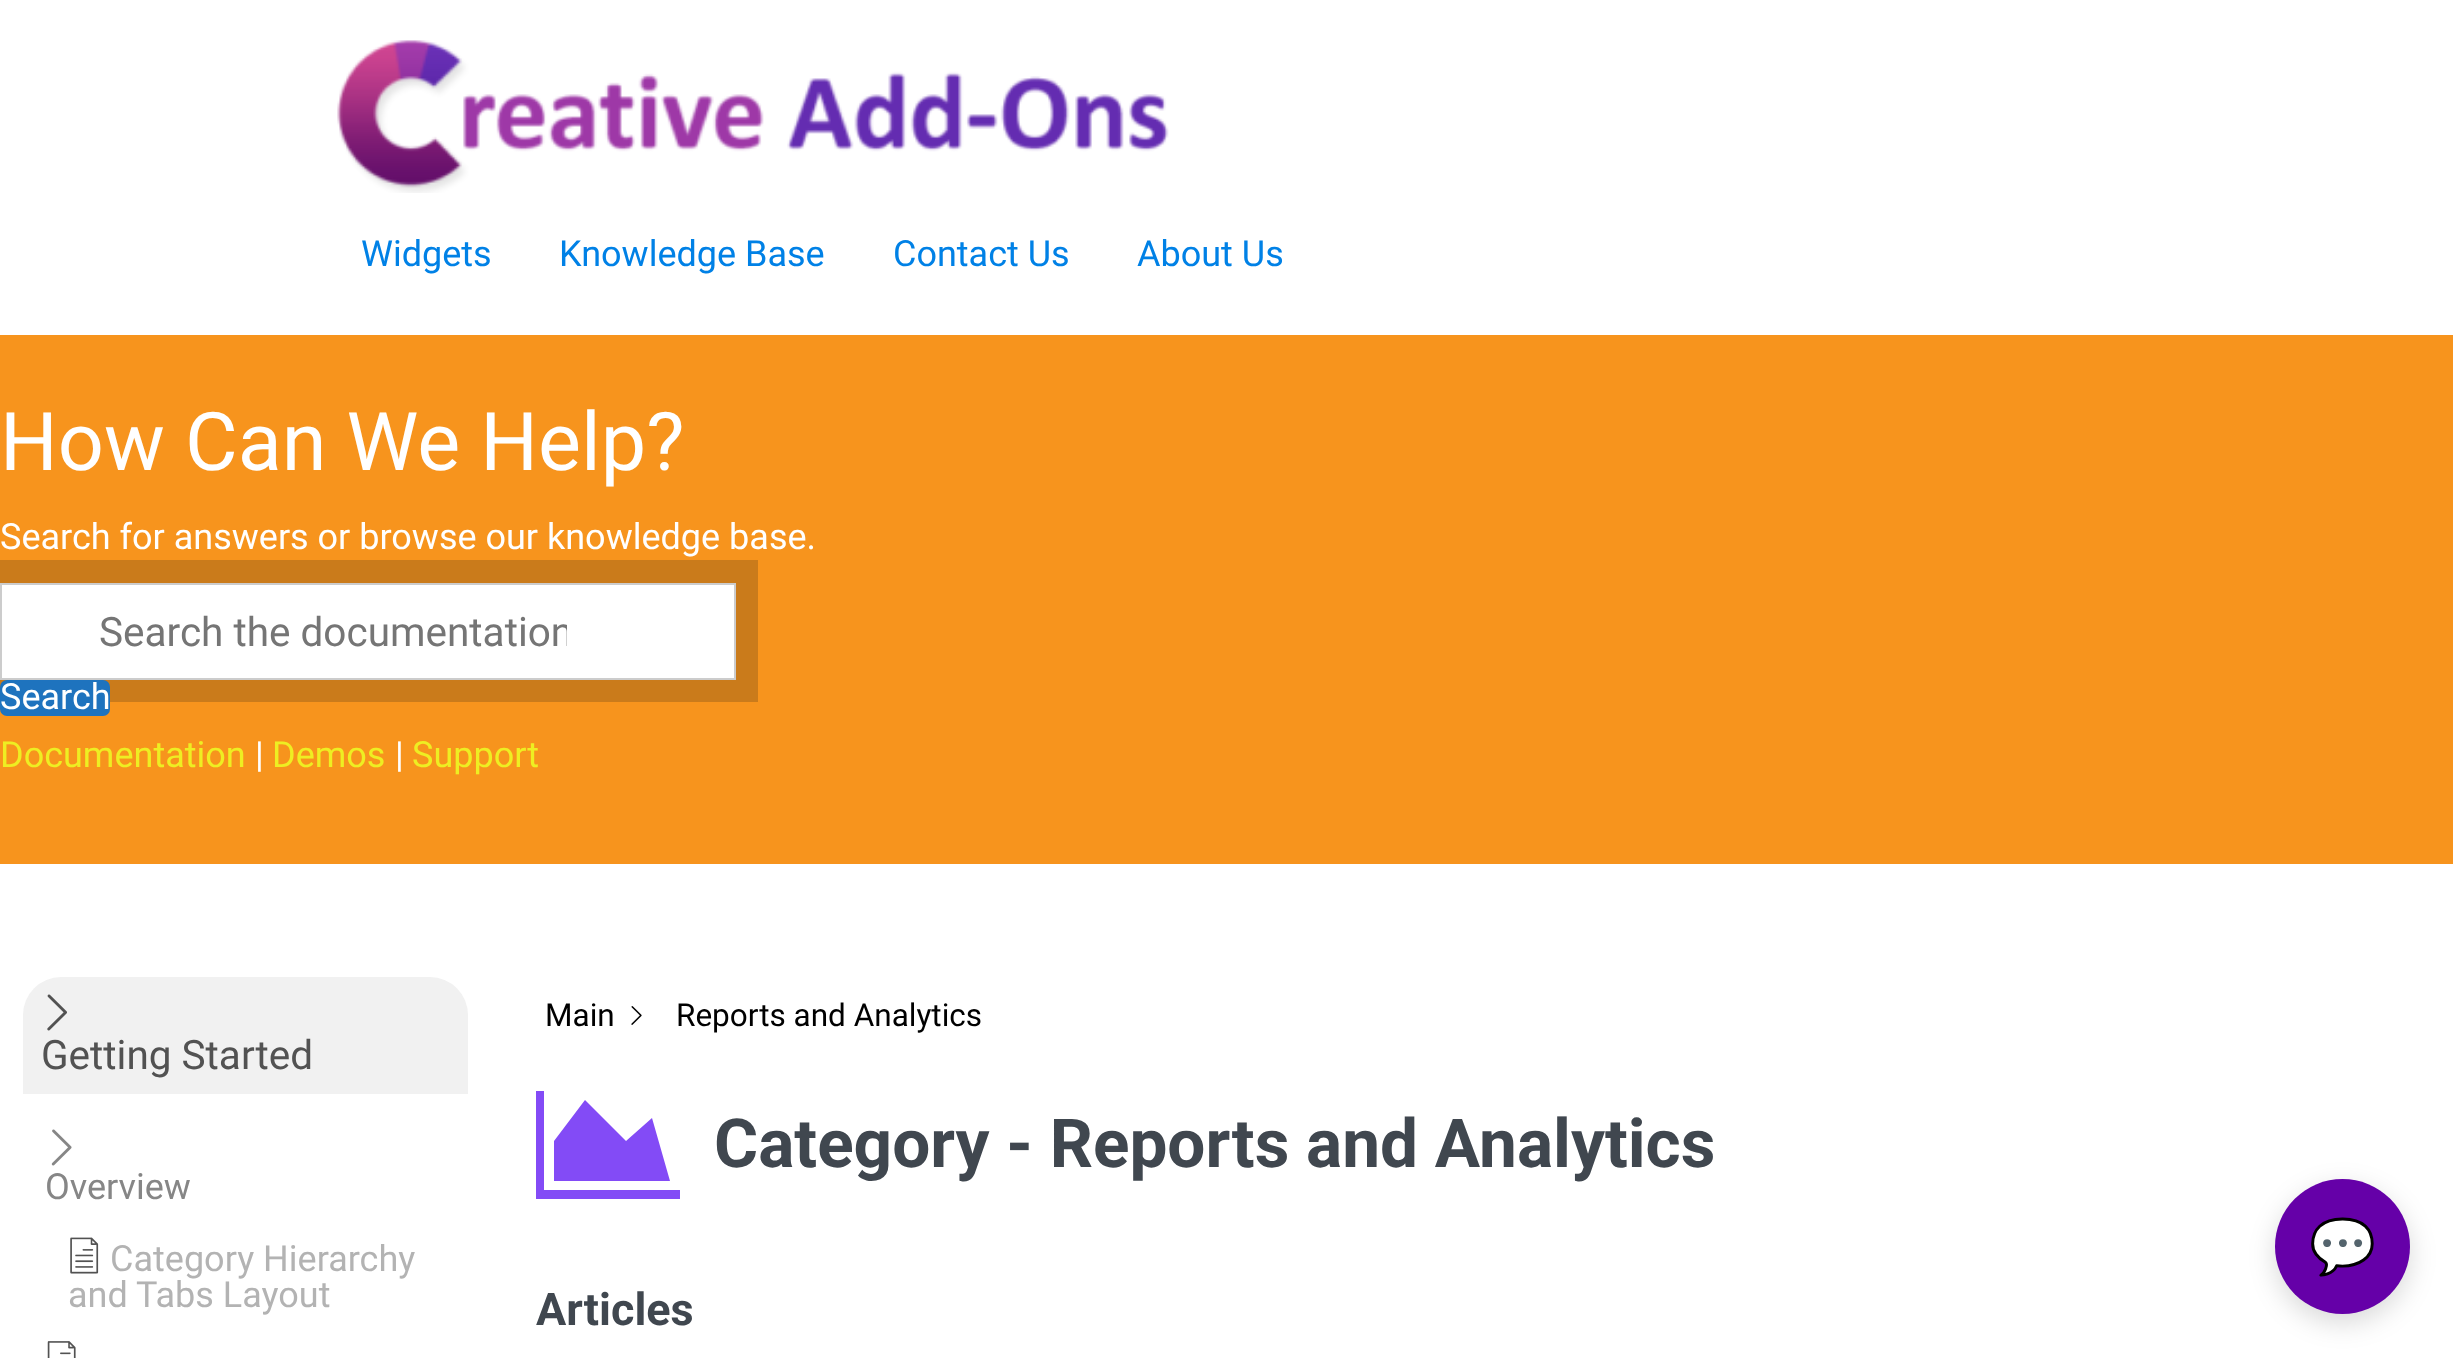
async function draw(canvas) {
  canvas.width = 2453;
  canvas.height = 1358;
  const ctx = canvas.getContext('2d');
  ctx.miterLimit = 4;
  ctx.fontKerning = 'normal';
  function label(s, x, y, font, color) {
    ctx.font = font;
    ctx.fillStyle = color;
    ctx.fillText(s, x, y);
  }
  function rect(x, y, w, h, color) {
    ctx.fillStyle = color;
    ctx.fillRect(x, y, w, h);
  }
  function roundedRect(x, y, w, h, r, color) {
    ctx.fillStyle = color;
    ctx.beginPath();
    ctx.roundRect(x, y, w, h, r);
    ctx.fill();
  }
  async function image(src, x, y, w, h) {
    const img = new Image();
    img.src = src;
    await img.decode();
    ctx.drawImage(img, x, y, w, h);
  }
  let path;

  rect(0, 0, 2453, 1358, '#fff');
  await image('assets/img1.png', 337, 40, 832, 153);
  label('Widgets', 361, 266, '36px Roboto', '#0081e6');
  label('Knowledge Base', 559, 266, '36px Roboto', '#0081e6');
  label('Contact Us', 893, 266, '36px Roboto', '#0081e6');
  label('About Us', 1137, 266, '36px Roboto', '#0081e6');
  rect(0, 335, 2453, 529, '#f7941d');
  label('How Can We Help?', 0, 470, '81px Roboto', '#fff');
  label('Search for answers or browse our knowledge base.', 0, 549, '36px Roboto', '#fff');
  ctx.strokeStyle = '#ca7b1b';
  ctx.lineWidth = 23;
  ctx.strokeRect(-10.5, 571.5, 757, 119);
  ctx.beginPath();
  ctx.rect(1, 584, 734, 95);
  ctx.fill();
  ctx.strokeStyle = '#ccc';
  ctx.lineWidth = 2;
  ctx.stroke();
  ctx.save();
  ctx.beginPath();
  ctx.rect(99, 608, 468, 47);
  ctx.clip();
  label('Search the documentation', 99, 646, '40.5px Roboto', '#757575');
  ctx.restore();
  roundedRect(0, 680, 110, 36, 7, '#1e73be');
  label('Search', 0, 709, '36px Roboto', '#fff');
  label('Documentation', 0, 767, '36px Roboto', '#ee2');
  label('|', 255, 767, '36px Roboto', '#fff');
  label('Demos', 272, 767, '36px Roboto', '#ee2');
  label('|', 395, 767, '36px Roboto', '#fff');
  label('Support', 412, 767, '36px Roboto', '#ee2');
  ctx.fillStyle = '#f1f1f1';
  ctx.beginPath();
  ctx.roundRect(23, 977, 445, 117, [38, 38, 0, 0]);
  ctx.fill();
  await image('assets/img2.png', 47, 994, 20, 37);
  label('Getting Started', 41, 1069, '40.5px Roboto', '#525252');
  await image('assets/img3.png', 51, 1129, 21, 37);
  label('Overview', 45, 1199, '36px Roboto', '#868686');
  await image('assets/img4.png', 70, 1237, 29, 37);
  label('Category Hierarchy', 110, 1271, '36px Roboto', '#b3b3b3');
  label('and Tabs Layout', 68, 1307, '36px Roboto', '#b3b3b3');
  await image('assets/img5.png', 47, 1341, 29, 17);
  label('Main', 545, 1026, '31.5px Roboto', '#000');
  await image('assets/img6.png', 631, 1006, 11, 19);
  label('Reports and Analytics', 676, 1026, '31.5px Roboto', '#000');
  ctx.fillStyle = '#834bf6';
  path = new Path2D('M680 1190V1199H536V1091H544V1190ZM652 1118L670 1181H554V1141L585 1100L626 1141Z');
  ctx.fill(path);
  label('Category - Reports and Analytics', 714, 1167, 'bold 67.5px Roboto', '#40474f');
  label('Articles', 536, 1325, 'bold 45px Roboto', '#40474f');
  ctx.fillStyle = '#00000026';
  ctx.filter = 'blur(13.5px)';
  ctx.beginPath();
  ctx.roundRect(2275, 1188, 135, 135, 67.5);
  ctx.fill();
  ctx.filter = 'none';
  ctx.fillStyle = '#6500a8';
  ctx.beginPath();
  ctx.arc(2342.5, 1246.5, 67.5, 0, 2 * Math.PI);
  ctx.fill();
  label('💬', 2309, 1265, '54px Noto Color Emoji', '#fff');
}

draw(document.querySelector('canvas'));
